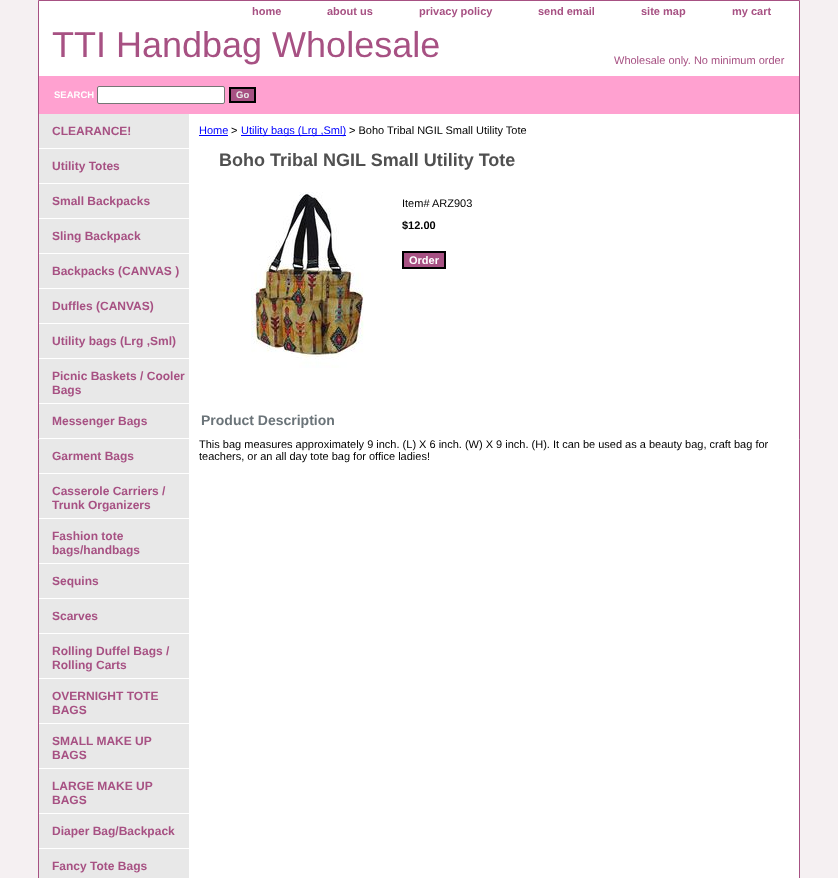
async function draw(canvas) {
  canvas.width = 838;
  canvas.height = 878;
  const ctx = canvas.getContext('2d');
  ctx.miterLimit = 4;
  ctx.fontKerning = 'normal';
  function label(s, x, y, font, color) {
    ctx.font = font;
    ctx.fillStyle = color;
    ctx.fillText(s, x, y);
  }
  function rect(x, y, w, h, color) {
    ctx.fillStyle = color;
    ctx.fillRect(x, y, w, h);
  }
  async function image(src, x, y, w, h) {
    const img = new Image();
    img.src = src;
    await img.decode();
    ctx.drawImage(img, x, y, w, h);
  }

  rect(0, 0, 838, 878, '#f5f0f2');
  ctx.fillStyle = '#fff';
  ctx.beginPath();
  ctx.rect(38.5, 0.5, 761, 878);
  ctx.fill();
  ctx.strokeStyle = '#a75183';
  ctx.stroke();
  label('home', 252, 15, 'bold 11px Liberation Sans', '#a75183');
  label('about us', 327, 15, 'bold 11px Liberation Sans', '#a75183');
  label('privacy policy', 419, 15, 'bold 11px Liberation Sans', '#a75183');
  label('send email', 538, 15, 'bold 11px Liberation Sans', '#a75183');
  label('site map', 641, 15, 'bold 11px Liberation Sans', '#a75183');
  label('my cart', 732, 15, 'bold 11px Liberation Sans', '#a75183');
  label('TTI Handbag Wholesale', 52, 57, '36px Liberation Sans', '#a75183');
  label('Wholesale only. No minimum order', 614, 64, '11px Liberation Sans', '#a75183');
  rect(39, 76, 760, 38, '#ffa1d0');
  label('SEARCH', 54, 98, 'bold 9.5px Liberation Sans', '#fff');
  ctx.beginPath();
  ctx.roundRect(97.5, 86.5, 127, 17, 1.5);
  ctx.fill();
  ctx.strokeStyle = '#767676';
  ctx.stroke();
  ctx.fillStyle = '#a75183';
  ctx.beginPath();
  ctx.rect(230, 88, 25, 14);
  ctx.fill();
  ctx.strokeStyle = '#000';
  ctx.lineWidth = 2;
  ctx.stroke();
  label('Go', 236, 98, 'bold 9.5px Liberation Sans', '#e8e8e8');
  rect(39, 114, 150, 764, '#e8e8e8');
  rect(39, 148, 150, 1, '#fff');
  label('CLEARANCE!', 52, 135, 'bold 12px Liberation Sans', '#a75183');
  rect(39, 183, 150, 1, '#fff');
  label('Utility Totes', 52, 170, 'bold 12px Liberation Sans', '#a75183');
  rect(39, 218, 150, 1, '#fff');
  label('Small Backpacks', 52, 205, 'bold 12px Liberation Sans', '#a75183');
  rect(39, 253, 150, 1, '#fff');
  label('Sling Backpack', 52, 240, 'bold 12px Liberation Sans', '#a75183');
  rect(39, 288, 150, 1, '#fff');
  label('Backpacks (CANVAS )', 52, 275, 'bold 12px Liberation Sans', '#a75183');
  rect(39, 323, 150, 1, '#fff');
  label('Duffles (CANVAS)', 52, 310, 'bold 12px Liberation Sans', '#a75183');
  rect(39, 358, 150, 1, '#fff');
  label('Utility bags (Lrg ,Sml)', 52, 345, 'bold 12px Liberation Sans', '#a75183');
  rect(39, 403, 150, 1, '#fff');
  label('Picnic Baskets / Cooler', 52, 380, 'bold 12px Liberation Sans', '#a75183');
  label('Bags', 52, 394, 'bold 12px Liberation Sans', '#a75183');
  rect(39, 438, 150, 1, '#fff');
  label('Messenger Bags', 52, 425, 'bold 12px Liberation Sans', '#a75183');
  rect(39, 473, 150, 1, '#fff');
  label('Garment Bags', 52, 460, 'bold 12px Liberation Sans', '#a75183');
  rect(39, 518, 150, 1, '#fff');
  label('Casserole Carriers /', 52, 495, 'bold 12px Liberation Sans', '#a75183');
  label('Trunk Organizers', 52, 509, 'bold 12px Liberation Sans', '#a75183');
  rect(39, 563, 150, 1, '#fff');
  label('Fashion tote', 52, 540, 'bold 12px Liberation Sans', '#a75183');
  label('bags/handbags', 52, 554, 'bold 12px Liberation Sans', '#a75183');
  rect(39, 598, 150, 1, '#fff');
  label('Sequins', 52, 585, 'bold 12px Liberation Sans', '#a75183');
  rect(39, 633, 150, 1, '#fff');
  label('Scarves', 52, 620, 'bold 12px Liberation Sans', '#a75183');
  rect(39, 678, 150, 1, '#fff');
  label('Rolling Duffel Bags /', 52, 655, 'bold 12px Liberation Sans', '#a75183');
  label('Rolling Carts', 52, 669, 'bold 12px Liberation Sans', '#a75183');
  rect(39, 723, 150, 1, '#fff');
  label('OVERNIGHT TOTE', 52, 700, 'bold 12px Liberation Sans', '#a75183');
  label('BAGS', 52, 714, 'bold 12px Liberation Sans', '#a75183');
  rect(39, 768, 150, 1, '#fff');
  label('SMALL MAKE UP', 52, 745, 'bold 12px Liberation Sans', '#a75183');
  label('BAGS', 52, 759, 'bold 12px Liberation Sans', '#a75183');
  rect(39, 813, 150, 1, '#fff');
  label('LARGE MAKE UP', 52, 790, 'bold 12px Liberation Sans', '#a75183');
  label('BAGS', 52, 804, 'bold 12px Liberation Sans', '#a75183');
  rect(39, 848, 150, 1, '#fff');
  label('Diaper Bag/Backpack', 52, 835, 'bold 12px Liberation Sans', '#a75183');
  label('Fancy Tote Bags', 52, 870, 'bold 12px Liberation Sans', '#a75183');
  label('Home', 199, 134, '11px Liberation Sans', '#00f');
  rect(199, 135, 29, 1, '#00f');
  label('>', 231, 134, '11px Liberation Sans', '#000');
  rect(241, 135, 105, 1, '#00f');
  label('Utility bags (Lrg ,Sml)', 241, 134, '11px Liberation Sans', '#00f');
  label('> Boho Tribal NGIL Small Utility Tote', 349, 134, '11px Liberation Sans', '#000');
  label('Boho Tribal NGIL Small Utility Tote', 219, 166, 'bold 18px Liberation Sans', '#505050');
  await image('assets/img1.png', 251, 192, 113, 176);
  label('Item#', 402, 207, '11px Liberation Sans', '#000');
  label('ARZ903', 432, 207, '11px Liberation Sans', '#000');
  label('$12.00', 402, 229, 'bold 11px Liberation Sans', '#000');
  ctx.fillStyle = '#a75183';
  ctx.beginPath();
  ctx.rect(403, 252, 42, 16);
  ctx.fill();
  ctx.stroke();
  label('Order', 409, 264, 'bold 11px Liberation Sans', '#fff');
  label('Product Description', 201, 425, 'bold 14px Liberation Sans', '#6b7479');
  label('This bag measures approximately 9 inch. (L) X 6 inch. (W) X 9 inch. (H). It can be used as a beauty bag, craft bag for', 199, 448, '11px Liberation Sans', '#000');
  label('teachers, or an all day tote bag for office ladies!', 199, 460, '11px Liberation Sans', '#000');
}

draw(document.querySelector('canvas'));
